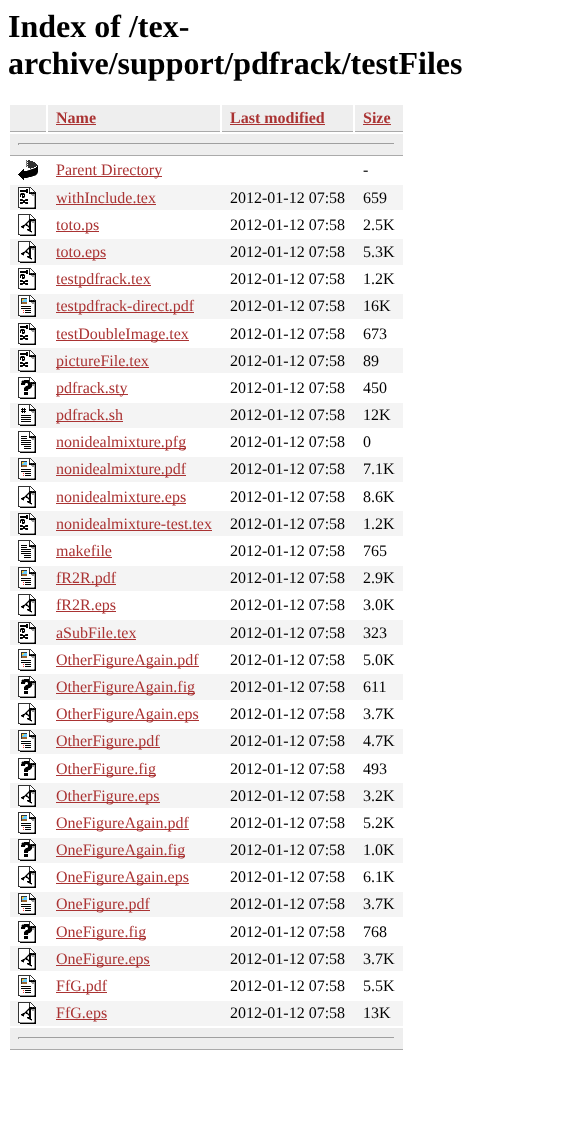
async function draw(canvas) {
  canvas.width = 587;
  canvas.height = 1140;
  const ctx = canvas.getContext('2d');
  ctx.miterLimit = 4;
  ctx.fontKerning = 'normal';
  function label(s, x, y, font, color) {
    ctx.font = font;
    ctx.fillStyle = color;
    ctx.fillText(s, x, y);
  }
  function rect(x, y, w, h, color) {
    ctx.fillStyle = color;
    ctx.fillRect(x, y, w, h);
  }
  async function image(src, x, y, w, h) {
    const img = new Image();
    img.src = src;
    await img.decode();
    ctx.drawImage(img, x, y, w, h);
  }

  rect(0, 0, 587, 1140, '#fff');
  label('Index of /tex-', 8, 37, 'bold 32px Liberation Serif', '#000');
  label('archive/support/pdfrack/testFiles', 8, 74, 'bold 32px Liberation Serif', '#000');
  rect(10, 105, 36, 26, '#eee');
  rect(10, 131, 36, 1, '#aaa');
  rect(48, 105, 172, 26, '#eee');
  rect(48, 131, 172, 1, '#aaa');
  label('Name', 56, 123, 'bold 16px Liberation Serif', '#a33');
  rect(56, 124, 40, 1, '#a33');
  rect(222, 105, 131, 26, '#eee');
  rect(222, 131, 131, 1, '#aaa');
  label('Last modified', 230, 123, 'bold 16px Liberation Serif', '#a33');
  rect(230, 124, 95, 1, '#a33');
  rect(355, 105, 48, 26, '#eee');
  rect(355, 131, 48, 1, '#aaa');
  label('Size', 363, 123, 'bold 16px Liberation Serif', '#a33');
  rect(363, 124, 28, 1, '#a33');
  rect(10, 134, 393, 21, '#eee');
  rect(10, 155, 393, 1, '#aaa');
  rect(18, 143, 377, 1, '#9f9f9f');
  rect(394, 143, 1, 2, '#eee');
  rect(18, 143, 1, 2, '#9f9f9f');
  await image('assets/img1.png', 18, 160, 20, 20);
  rect(56, 176, 106, 1, '#a33');
  label('Parent Directory', 56, 175, '16px Liberation Serif', '#a33');
  label('-', 363, 175, '16px Liberation Serif', '#000');
  rect(10, 185, 393, 25, '#f4f4f4');
  await image('assets/img2.png', 18, 187, 18, 22);
  label('withInclude.tex', 56, 203, '16px Liberation Serif', '#a33');
  rect(56, 204, 100, 1, '#a33');
  label('2012-01-12 07:58', 230, 203, '16px Liberation Serif', '#000');
  label('659', 363, 203, '16px Liberation Serif', '#000');
  await image('assets/img3.png', 18, 214, 18, 22);
  rect(56, 231, 43, 1, '#a33');
  label('toto.ps', 56, 230, '16px Liberation Serif', '#a33');
  label('2012-01-12 07:58', 230, 230, '16px Liberation Serif', '#000');
  label('2.5K', 363, 230, '16px Liberation Serif', '#000');
  rect(10, 239, 393, 26, '#f4f4f4');
  await image('assets/img4.png', 18, 241, 18, 22);
  rect(56, 258, 50, 1, '#a33');
  label('toto.eps', 56, 257, '16px Liberation Serif', '#a33');
  label('2012-01-12 07:58', 230, 257, '16px Liberation Serif', '#000');
  label('5.3K', 363, 257, '16px Liberation Serif', '#000');
  await image('assets/img5.png', 18, 268, 18, 22);
  rect(56, 285, 95, 1, '#a33');
  label('testpdfrack.tex', 56, 284, '16px Liberation Serif', '#a33');
  label('2012-01-12 07:58', 230, 284, '16px Liberation Serif', '#000');
  label('1.2K', 363, 284, '16px Liberation Serif', '#000');
  rect(10, 294, 393, 25, '#f4f4f4');
  await image('assets/img6.png', 18, 295, 18, 22);
  rect(56, 312, 138, 1, '#a33');
  label('testpdfrack-direct.pdf', 56, 311, '16px Liberation Serif', '#a33');
  label('2012-01-12 07:58', 230, 311, '16px Liberation Serif', '#000');
  label('16K', 363, 311, '16px Liberation Serif', '#000');
  await image('assets/img5.png', 18, 323, 18, 22);
  rect(56, 340, 133, 1, '#a33');
  label('testDoubleImage.tex', 56, 339, '16px Liberation Serif', '#a33');
  label('2012-01-12 07:58', 230, 339, '16px Liberation Serif', '#000');
  label('673', 363, 339, '16px Liberation Serif', '#000');
  rect(10, 348, 393, 25, '#f4f4f4');
  await image('assets/img2.png', 18, 350, 18, 22);
  rect(56, 367, 93, 1, '#a33');
  label('pictureFile.tex', 56, 366, '16px Liberation Serif', '#a33');
  label('2012-01-12 07:58', 230, 366, '16px Liberation Serif', '#000');
  label('89', 363, 366, '16px Liberation Serif', '#000');
  await image('assets/img7.png', 18, 377, 18, 22);
  rect(56, 394, 72, 1, '#a33');
  label('pdfrack.sty', 56, 393, '16px Liberation Serif', '#a33');
  label('2012-01-12 07:58', 230, 393, '16px Liberation Serif', '#000');
  label('450', 363, 393, '16px Liberation Serif', '#000');
  rect(10, 403, 393, 25, '#f4f4f4');
  await image('assets/img8.png', 18, 404, 18, 22);
  rect(56, 421, 67, 1, '#a33');
  label('pdfrack.sh', 56, 420, '16px Liberation Serif', '#a33');
  label('2012-01-12 07:58', 230, 420, '16px Liberation Serif', '#000');
  label('12K', 363, 420, '16px Liberation Serif', '#000');
  await image('assets/img9.png', 18, 431, 18, 22);
  rect(56, 448, 130, 1, '#a33');
  label('nonidealmixture.pfg', 56, 447, '16px Liberation Serif', '#a33');
  label('2012-01-12 07:58', 230, 447, '16px Liberation Serif', '#000');
  label('0', 363, 447, '16px Liberation Serif', '#000');
  rect(10, 457, 393, 25, '#f4f4f4');
  await image('assets/img6.png', 18, 458, 18, 22);
  rect(56, 475, 130, 1, '#a33');
  label('nonidealmixture.pdf', 56, 474, '16px Liberation Serif', '#a33');
  label('2012-01-12 07:58', 230, 474, '16px Liberation Serif', '#000');
  label('7.1K', 363, 474, '16px Liberation Serif', '#000');
  await image('assets/img3.png', 18, 486, 18, 22);
  rect(56, 503, 130, 1, '#a33');
  label('nonidealmixture.eps', 56, 502, '16px Liberation Serif', '#a33');
  label('2012-01-12 07:58', 230, 502, '16px Liberation Serif', '#000');
  label('8.6K', 363, 502, '16px Liberation Serif', '#000');
  rect(10, 511, 393, 25, '#f4f4f4');
  await image('assets/img2.png', 18, 513, 18, 22);
  label('nonidealmixture-test.tex', 56, 529, '16px Liberation Serif', '#a33');
  rect(56, 530, 156, 1, '#a33');
  label('2012-01-12 07:58', 230, 529, '16px Liberation Serif', '#000');
  label('1.2K', 363, 529, '16px Liberation Serif', '#000');
  await image('assets/img9.png', 18, 540, 18, 22);
  label('makefile', 56, 556, '16px Liberation Serif', '#a33');
  rect(56, 557, 56, 1, '#a33');
  label('2012-01-12 07:58', 230, 556, '16px Liberation Serif', '#000');
  label('765', 363, 556, '16px Liberation Serif', '#000');
  rect(10, 566, 393, 25, '#f4f4f4');
  await image('assets/img6.png', 18, 567, 18, 22);
  rect(56, 584, 60, 1, '#a33');
  label('fR2R.pdf', 56, 583, '16px Liberation Serif', '#a33');
  label('2012-01-12 07:58', 230, 583, '16px Liberation Serif', '#000');
  label('2.9K', 363, 583, '16px Liberation Serif', '#000');
  await image('assets/img3.png', 18, 594, 18, 22);
  rect(56, 611, 60, 1, '#a33');
  label('fR2R.eps', 56, 610, '16px Liberation Serif', '#a33');
  label('2012-01-12 07:58', 230, 610, '16px Liberation Serif', '#000');
  label('3.0K', 363, 610, '16px Liberation Serif', '#000');
  rect(10, 620, 393, 25, '#f4f4f4');
  await image('assets/img2.png', 18, 622, 18, 22);
  label('aSubFile.tex', 56, 638, '16px Liberation Serif', '#a33');
  rect(56, 639, 80, 1, '#a33');
  label('2012-01-12 07:58', 230, 638, '16px Liberation Serif', '#000');
  label('323', 363, 638, '16px Liberation Serif', '#000');
  await image('assets/img10.png', 18, 649, 18, 22);
  rect(56, 666, 143, 1, '#a33');
  label('OtherFigureAgain.pdf', 56, 665, '16px Liberation Serif', '#a33');
  label('2012-01-12 07:58', 230, 665, '16px Liberation Serif', '#000');
  label('5.0K', 363, 665, '16px Liberation Serif', '#000');
  rect(10, 674, 393, 26, '#f4f4f4');
  await image('assets/img11.png', 18, 676, 18, 22);
  rect(56, 693, 139, 1, '#a33');
  label('OtherFigureAgain.fig', 56, 692, '16px Liberation Serif', '#a33');
  label('2012-01-12 07:58', 230, 692, '16px Liberation Serif', '#000');
  label('611', 363, 692, '16px Liberation Serif', '#000');
  await image('assets/img3.png', 18, 703, 18, 22);
  rect(56, 720, 143, 1, '#a33');
  label('OtherFigureAgain.eps', 56, 719, '16px Liberation Serif', '#a33');
  label('2012-01-12 07:58', 230, 719, '16px Liberation Serif', '#000');
  label('3.7K', 363, 719, '16px Liberation Serif', '#000');
  rect(10, 729, 393, 25, '#f4f4f4');
  await image('assets/img6.png', 18, 730, 18, 22);
  rect(56, 747, 104, 1, '#a33');
  label('OtherFigure.pdf', 56, 746, '16px Liberation Serif', '#a33');
  label('2012-01-12 07:58', 230, 746, '16px Liberation Serif', '#000');
  label('4.7K', 363, 746, '16px Liberation Serif', '#000');
  await image('assets/img7.png', 18, 758, 18, 22);
  rect(56, 775, 100, 1, '#a33');
  label('OtherFigure.fig', 56, 774, '16px Liberation Serif', '#a33');
  label('2012-01-12 07:58', 230, 774, '16px Liberation Serif', '#000');
  label('493', 363, 774, '16px Liberation Serif', '#000');
  rect(10, 783, 393, 25, '#f4f4f4');
  await image('assets/img4.png', 18, 785, 18, 22);
  rect(56, 802, 104, 1, '#a33');
  label('OtherFigure.eps', 56, 801, '16px Liberation Serif', '#a33');
  label('2012-01-12 07:58', 230, 801, '16px Liberation Serif', '#000');
  label('3.2K', 363, 801, '16px Liberation Serif', '#000');
  await image('assets/img10.png', 18, 812, 18, 22);
  rect(56, 829, 133, 1, '#a33');
  label('OneFigureAgain.pdf', 56, 828, '16px Liberation Serif', '#a33');
  label('2012-01-12 07:58', 230, 828, '16px Liberation Serif', '#000');
  label('5.2K', 363, 828, '16px Liberation Serif', '#000');
  rect(10, 838, 393, 25, '#f4f4f4');
  await image('assets/img11.png', 18, 839, 18, 22);
  rect(56, 856, 129, 1, '#a33');
  label('OneFigureAgain.fig', 56, 855, '16px Liberation Serif', '#a33');
  label('2012-01-12 07:58', 230, 855, '16px Liberation Serif', '#000');
  label('1.0K', 363, 855, '16px Liberation Serif', '#000');
  await image('assets/img3.png', 18, 866, 18, 22);
  rect(56, 883, 133, 1, '#a33');
  label('OneFigureAgain.eps', 56, 882, '16px Liberation Serif', '#a33');
  label('2012-01-12 07:58', 230, 882, '16px Liberation Serif', '#000');
  label('6.1K', 363, 882, '16px Liberation Serif', '#000');
  rect(10, 892, 393, 25, '#f4f4f4');
  await image('assets/img6.png', 18, 893, 18, 22);
  rect(56, 910, 94, 1, '#a33');
  label('OneFigure.pdf', 56, 909, '16px Liberation Serif', '#a33');
  label('2012-01-12 07:58', 230, 909, '16px Liberation Serif', '#000');
  label('3.7K', 363, 909, '16px Liberation Serif', '#000');
  await image('assets/img7.png', 18, 921, 18, 22);
  rect(56, 938, 90, 1, '#a33');
  label('OneFigure.fig', 56, 937, '16px Liberation Serif', '#a33');
  label('2012-01-12 07:58', 230, 937, '16px Liberation Serif', '#000');
  label('768', 363, 937, '16px Liberation Serif', '#000');
  rect(10, 946, 393, 25, '#f4f4f4');
  await image('assets/img4.png', 18, 948, 18, 22);
  rect(56, 965, 94, 1, '#a33');
  label('OneFigure.eps', 56, 964, '16px Liberation Serif', '#a33');
  label('2012-01-12 07:58', 230, 964, '16px Liberation Serif', '#000');
  label('3.7K', 363, 964, '16px Liberation Serif', '#000');
  await image('assets/img10.png', 18, 975, 18, 22);
  rect(56, 992, 51, 1, '#a33');
  label('FfG.pdf', 56, 991, '16px Liberation Serif', '#a33');
  label('2012-01-12 07:58', 230, 991, '16px Liberation Serif', '#000');
  label('5.5K', 363, 991, '16px Liberation Serif', '#000');
  rect(10, 1001, 393, 25, '#f4f4f4');
  await image('assets/img4.png', 18, 1002, 18, 22);
  rect(56, 1019, 51, 1, '#a33');
  label('FfG.eps', 56, 1018, '16px Liberation Serif', '#a33');
  label('2012-01-12 07:58', 230, 1018, '16px Liberation Serif', '#000');
  label('13K', 363, 1018, '16px Liberation Serif', '#000');
  rect(10, 1028, 393, 21, '#eee');
  rect(10, 1049, 393, 1, '#aaa');
  rect(18, 1037, 377, 1, '#9f9f9f');
  rect(394, 1037, 1, 2, '#eee');
  rect(18, 1037, 1, 2, '#9f9f9f');
}

draw(document.querySelector('canvas'));
